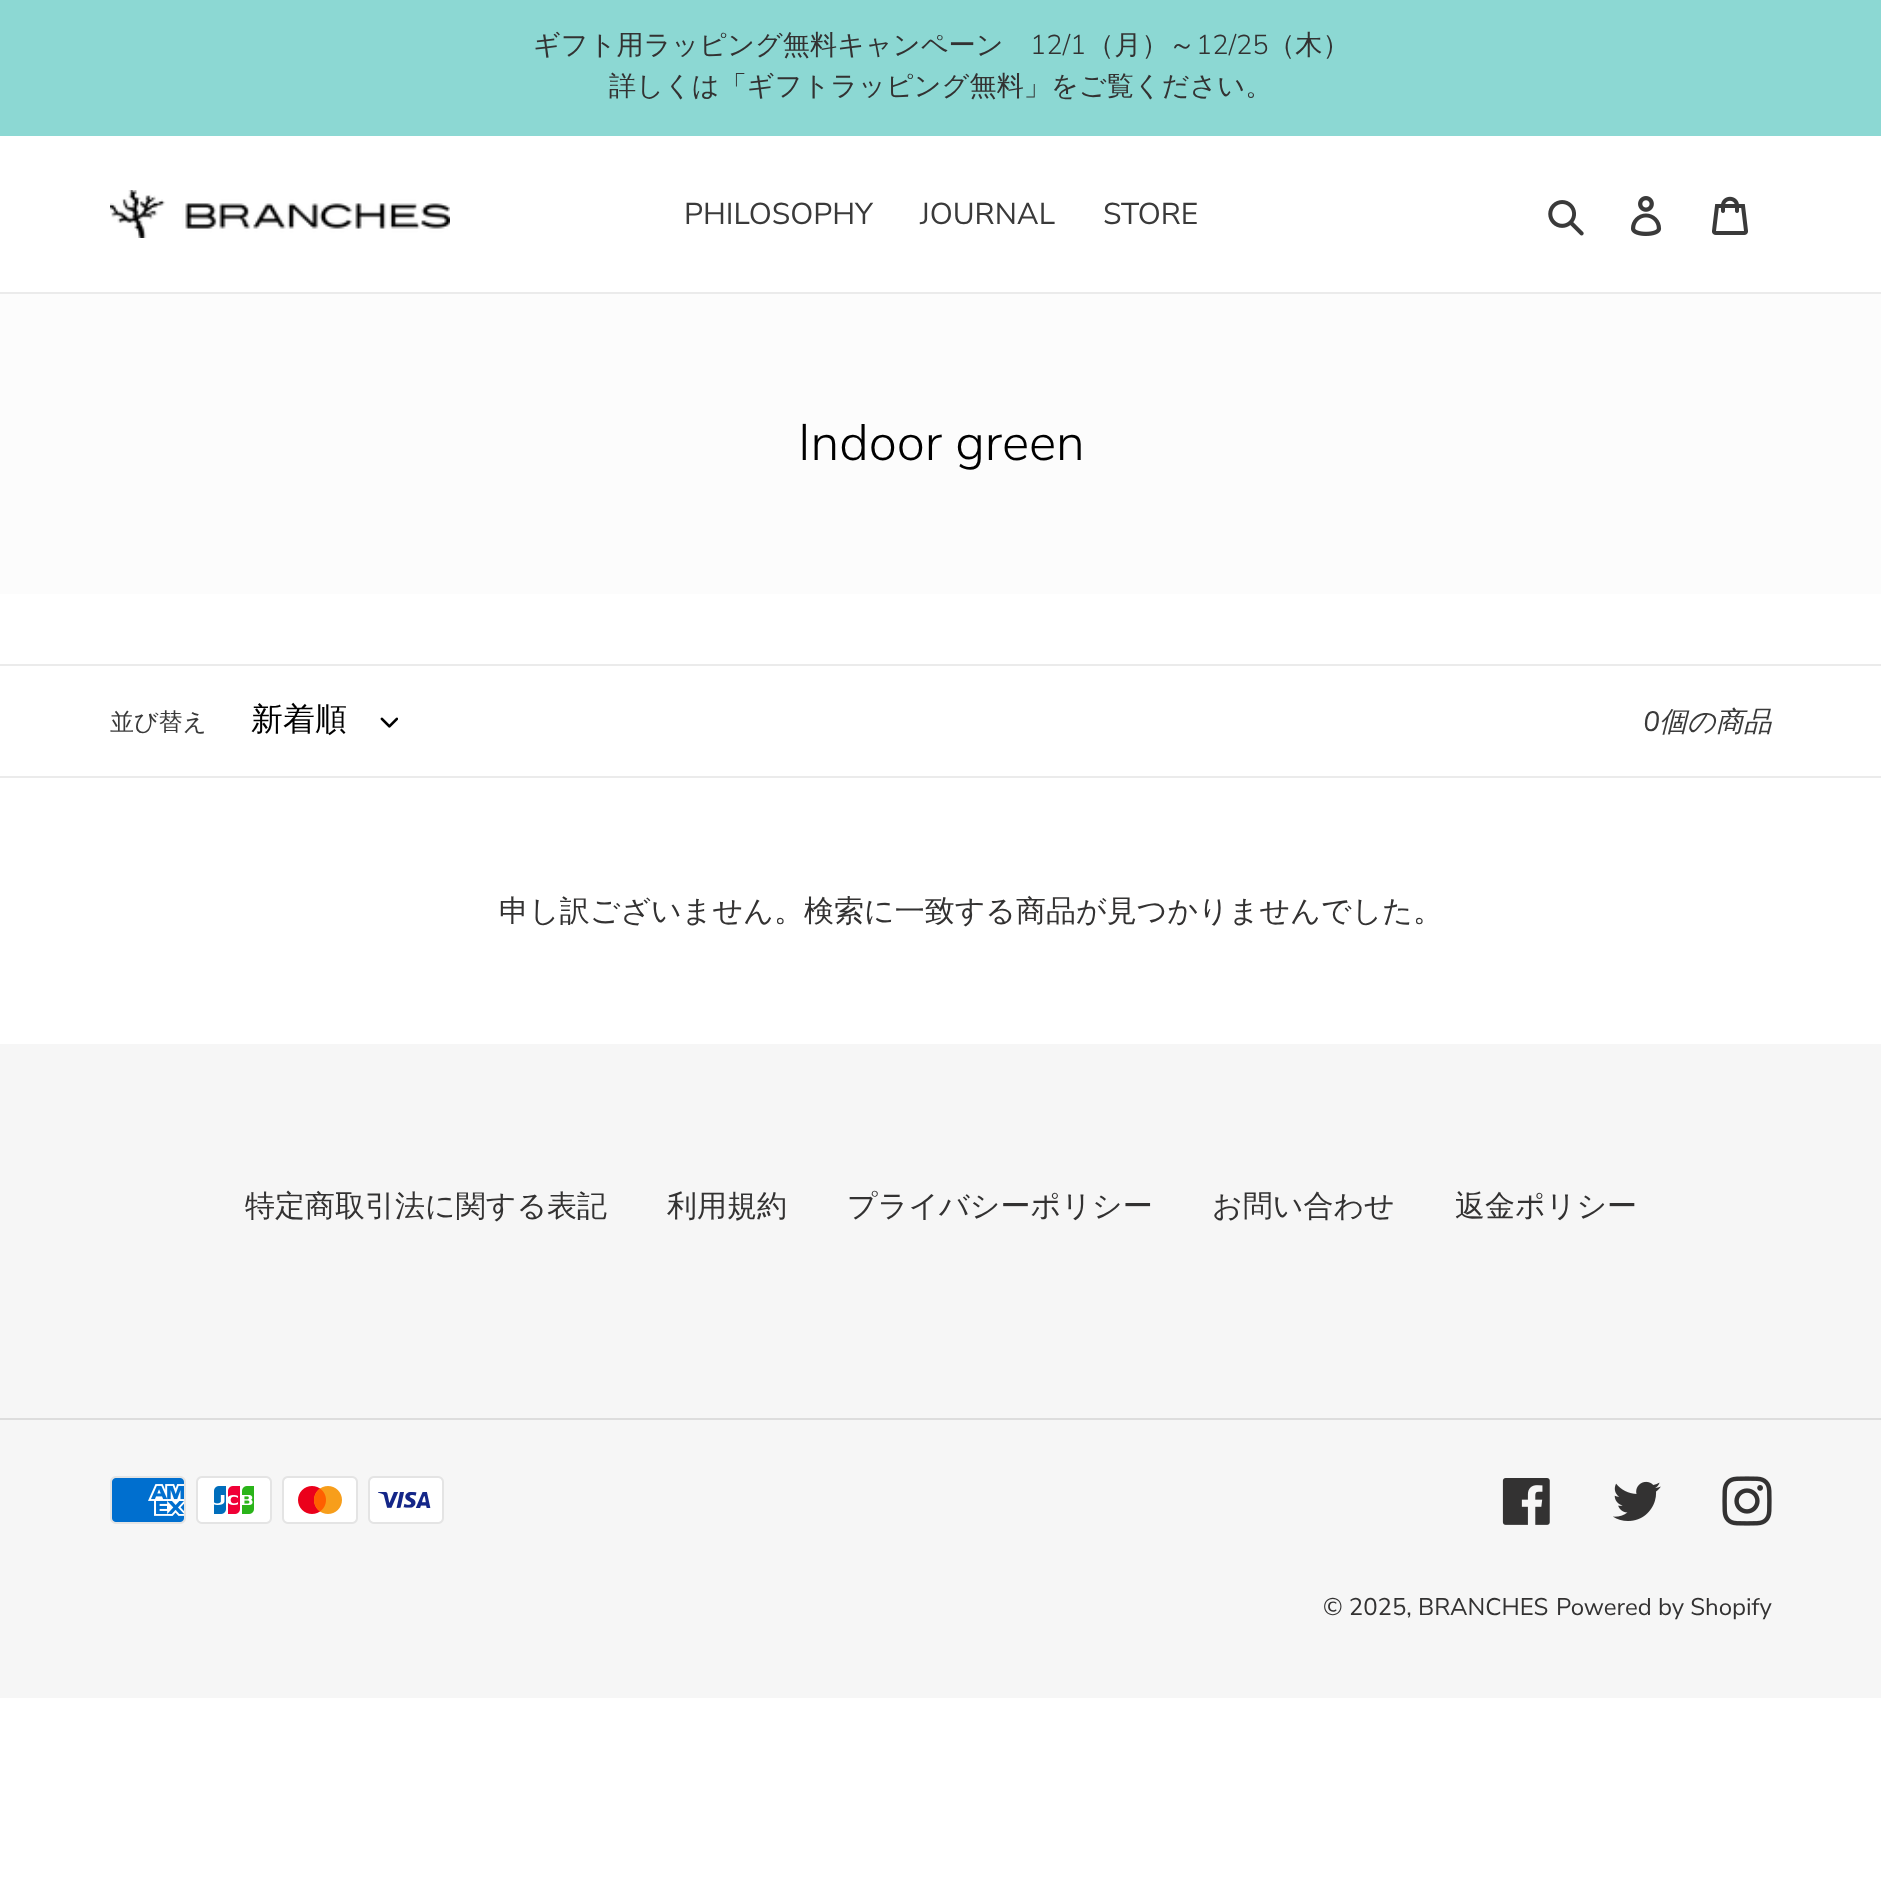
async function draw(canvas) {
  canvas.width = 1881;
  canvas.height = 1887;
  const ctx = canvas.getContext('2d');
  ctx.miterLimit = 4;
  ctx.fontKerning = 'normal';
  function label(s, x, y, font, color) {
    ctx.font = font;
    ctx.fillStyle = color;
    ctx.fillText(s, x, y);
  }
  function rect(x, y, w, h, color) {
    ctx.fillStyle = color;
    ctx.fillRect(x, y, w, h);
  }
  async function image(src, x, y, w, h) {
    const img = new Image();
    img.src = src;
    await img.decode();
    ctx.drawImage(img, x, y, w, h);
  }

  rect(0, 0, 1881, 1887, '#fff');
  rect(0, 0, 1881, 136, '#8cd8d3');
  label('ギフト用ラッピング無料キャンペーン', 533, 54, '500 27.2px WenQuanYi Zen Hei', '#333232');
  label('12/1', 1030, 54, '300 27.2px Nunito Sans', '#333232');
  label('（月）～', 1087, 54, '500 27.2px WenQuanYi Zen Hei', '#333232');
  label('12/25', 1196, 54, '300 27.2px Nunito Sans', '#333232');
  label('（木）', 1268, 54, '500 27.2px WenQuanYi Zen Hei', '#333232');
  label('詳しくは「ギフトラッピング無料」をご覧ください。', 609, 95, '500 27.2px WenQuanYi Zen Hei', '#333232');
  rect(0, 292, 1881, 2, '#ebebeb');
  await image('assets/img1.png', 110, 190, 340, 48);
  label('PHILOSOPHY', 684, 224, '30px Nunito Sans', '#3a3a3a');
  label('JOURNAL', 920, 224, '30px Nunito Sans', '#3a3a3a');
  label('STORE', 1103, 224, '30px Nunito Sans', '#3a3a3a');
  await image('assets/img2.png', 1548, 200, 36, 36);
  await image('assets/img3.png', 1631, 196, 31, 40);
  await image('assets/img4.png', 1712, 196, 36, 39);
  rect(0, 294, 1881, 300, '#fcfcfc');
  label('Indoor green', 798, 460, '300 51.25px Nunito Sans', '#000');
  rect(0, 664, 1881, 2, '#ebebeb');
  rect(0, 776, 1881, 2, '#ebebeb');
  label('並び替え', 110, 730, '500 24px WenQuanYi Zen Hei', '#3a3a3a');
  label('新着順', 251, 730, '500 32px WenQuanYi Zen Hei', '#000');
  await image('assets/img5.png', 380, 717, 18, 11);
  label('0', 1643, 731, 'italic 28px Nunito Sans', '#3a3a3a');
  label('個の商品', 1659, 731, 'italic 500 28px WenQuanYi Zen Hei', '#3a3a3a');
  label('申し訳ございません。検索に一致する商品が見つかりませんでした。', 499, 921, '500 30px WenQuanYi Zen Hei', '#333232');
  rect(0, 1044, 1881, 654, '#f6f6f6');
  label('特定商取引法に関する表記', 245, 1216, '500 30px WenQuanYi Zen Hei', '#333232');
  label('利用規約', 667, 1216, '500 30px WenQuanYi Zen Hei', '#333232');
  label('プライバシーポリシー', 847, 1216, '500 30px WenQuanYi Zen Hei', '#333232');
  label('お問い合わせ', 1212, 1216, '500 30px WenQuanYi Zen Hei', '#333232');
  label('返金ポリシー', 1455, 1216, '500 30px WenQuanYi Zen Hei', '#333232');
  rect(0, 1418, 1881, 2, '#ddd');
  await image('assets/img6.png', 110, 1476, 76, 48);
  await image('assets/img7.png', 196, 1476, 76, 48);
  await image('assets/img8.png', 282, 1476, 76, 48);
  await image('assets/img9.png', 368, 1476, 76, 48);
  await image('assets/img10.png', 1502, 1478, 48, 47);
  await image('assets/img11.png', 1613, 1481, 48, 40);
  await image('assets/img12.png', 1722, 1476, 50, 50);
  label('© 2025, BRANCHES', 1323, 1615, '24px Nunito Sans', '#333232');
  label('Powered by Shopify', 1556, 1615, '24px Nunito Sans', '#333232');
}

draw(document.querySelector('canvas'));
